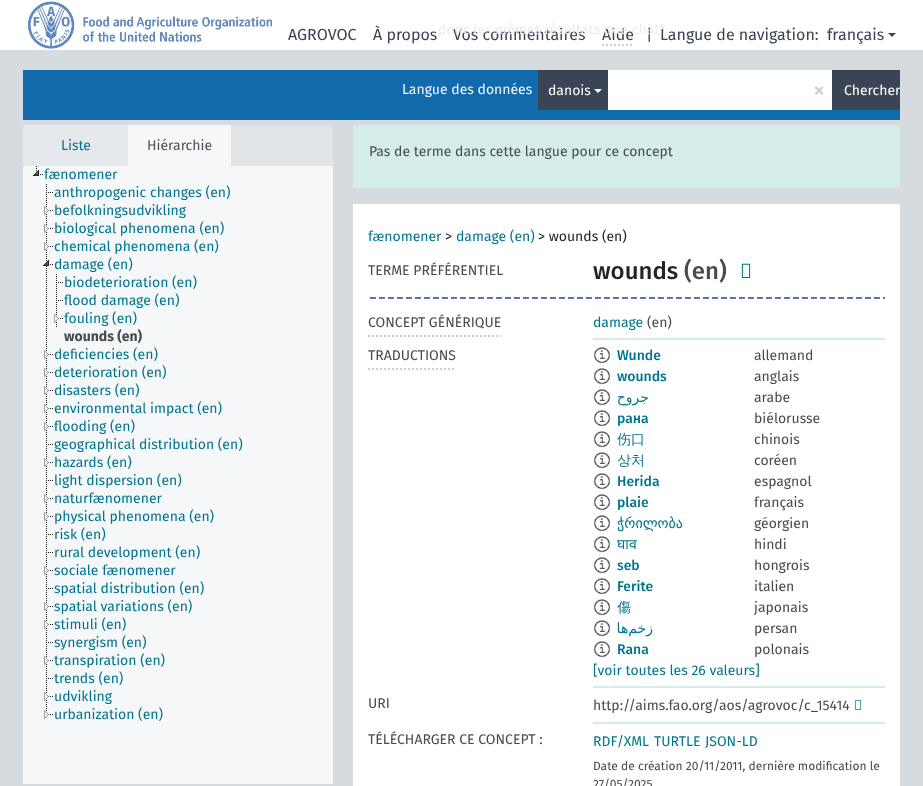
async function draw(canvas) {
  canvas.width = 923;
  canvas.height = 786;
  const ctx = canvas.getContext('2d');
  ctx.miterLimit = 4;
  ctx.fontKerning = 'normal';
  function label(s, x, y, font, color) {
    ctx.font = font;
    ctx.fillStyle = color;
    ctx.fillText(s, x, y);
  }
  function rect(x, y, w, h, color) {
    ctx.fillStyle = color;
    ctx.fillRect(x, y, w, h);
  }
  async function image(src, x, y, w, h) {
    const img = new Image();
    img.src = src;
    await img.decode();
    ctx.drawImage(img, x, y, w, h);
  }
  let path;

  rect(0, 0, 923, 786, '#d5dbde');
  rect(0, 0, 923, 50, '#fff');
  await image('assets/img1.png', 27, 1, 246, 49);
  label('À propos', 373, 40, '16px Fira Sans', '#394554');
  label('Aide', 602, 40, '16px Fira Sans', '#394554');
  label('Vos commentaires', 453, 40, '16px Fira Sans', '#394554');
  label('|', 646, 40, '16px Fira Sans', '#394554');
  label('Langue de navigation:', 660, 40, '16px Fira Sans', '#394554');
  label('donc les mêmes résultats que chat*.', 438, 34, '14px Fira Sans', '#e9ebec');
  path = new Path2D('M602 45H634');
  ctx.strokeStyle = '#ccc';
  ctx.lineWidth = 2;
  ctx.setLineDash([2, 2]);
  ctx.stroke(path);
  label('AGROVOC', 288, 40, '16px Fira Sans', '#394554');
  label('français', 827, 40, '16px Fira Sans', '#394554');
  path = new Path2D('M888 33H896L892 37Z');
  ctx.fill(path);
  rect(23, 70, 877, 50, '#116aab');
  label('Langue des données', 402, 94, '14px Fira Sans', '#f3f8fb');
  rect(538, 70, 70, 40, '#394554');
  label('danois', 548, 95, '14px Fira Sans', '#fff');
  path = new Path2D('M594 89H602L598 93Z');
  ctx.fill(path);
  rect(608, 70, 224, 40, '#fff');
  label('×', 813, 98, '24px Fira Sans', '#ccc');
  rect(832, 70, 68, 40, '#394554');
  label('Chercher', 844, 95, '14px Fira Sans', '#fff');
  rect(231, 125, 102, 41, '#e0e4e7');
  rect(23, 125, 105, 41, '#e6e9eb');
  label('Liste', 61, 150, '14px Fira Sans', '#00748f');
  rect(128, 125, 103, 41, '#f6f7f8');
  label('Hiérarchie', 147, 150, '14px Fira Sans', '#495057');
  rect(23, 166, 310, 618, '#f6f7f8');
  await image('assets/img2.png', 33, 166, 10, 10);
  label('fænomener', 44, 179, '14px Fira Sans', '#00748f');
  await image('assets/img3.png', 46, 184, 1, 17);
  await image('assets/img4.png', 48, 192, 5, 1);
  label('anthropogenic changes (en)', 54, 197, '14px Fira Sans', '#00748f');
  await image('assets/img3.png', 46, 202, 1, 17);
  await image('assets/img5.png', 44, 206, 9, 9);
  label('befolkningsudvikling', 54, 215, '14px Fira Sans', '#00748f');
  await image('assets/img3.png', 46, 220, 1, 17);
  await image('assets/img5.png', 44, 224, 9, 9);
  label('biological phenomena (en)', 54, 233, '14px Fira Sans', '#00748f');
  await image('assets/img3.png', 46, 238, 1, 17);
  await image('assets/img5.png', 44, 242, 9, 9);
  label('chemical phenomena (en)', 54, 251, '14px Fira Sans', '#00748f');
  await image('assets/img6.png', 46, 256, 1, 89);
  await image('assets/img7.png', 43, 260, 10, 6);
  label('damage (en)', 54, 269, '14px Fira Sans', '#00748f');
  await image('assets/img3.png', 56, 274, 1, 17);
  await image('assets/img4.png', 58, 282, 5, 1);
  label('biodeterioration (en)', 64, 287, '14px Fira Sans', '#00748f');
  await image('assets/img3.png', 56, 292, 1, 17);
  await image('assets/img4.png', 58, 300, 5, 1);
  label('flood damage (en)', 64, 305, '14px Fira Sans', '#00748f');
  await image('assets/img3.png', 56, 310, 1, 17);
  await image('assets/img5.png', 54, 314, 9, 9);
  label('fouling (en)', 64, 323, '14px Fira Sans', '#00748f');
  label('wounds (en)', 64, 341, 'bold 14px Fira Sans', '#474b4f');
  await image('assets/img3.png', 46, 346, 1, 17);
  await image('assets/img5.png', 44, 350, 9, 9);
  label('deficiencies (en)', 54, 359, '14px Fira Sans', '#00748f');
  await image('assets/img3.png', 46, 364, 1, 17);
  await image('assets/img5.png', 44, 368, 9, 9);
  label('deterioration (en)', 54, 377, '14px Fira Sans', '#00748f');
  await image('assets/img3.png', 46, 382, 1, 17);
  await image('assets/img5.png', 44, 386, 9, 9);
  label('disasters (en)', 54, 395, '14px Fira Sans', '#00748f');
  await image('assets/img3.png', 46, 400, 1, 17);
  await image('assets/img5.png', 44, 404, 9, 9);
  label('environmental impact (en)', 54, 413, '14px Fira Sans', '#00748f');
  await image('assets/img3.png', 46, 418, 1, 17);
  await image('assets/img5.png', 44, 422, 9, 9);
  label('flooding (en)', 54, 431, '14px Fira Sans', '#00748f');
  await image('assets/img3.png', 46, 436, 1, 17);
  await image('assets/img4.png', 48, 444, 5, 1);
  label('geographical distribution (en)', 54, 449, '14px Fira Sans', '#00748f');
  await image('assets/img3.png', 46, 454, 1, 17);
  await image('assets/img5.png', 44, 458, 9, 9);
  label('hazards (en)', 54, 467, '14px Fira Sans', '#00748f');
  await image('assets/img3.png', 46, 472, 1, 17);
  await image('assets/img4.png', 48, 480, 5, 1);
  label('light dispersion (en)', 54, 485, '14px Fira Sans', '#00748f');
  await image('assets/img3.png', 46, 490, 1, 17);
  await image('assets/img5.png', 44, 494, 9, 9);
  label('naturfænomener', 54, 503, '14px Fira Sans', '#00748f');
  await image('assets/img3.png', 46, 508, 1, 17);
  await image('assets/img5.png', 44, 512, 9, 9);
  label('physical phenomena (en)', 54, 521, '14px Fira Sans', '#00748f');
  await image('assets/img3.png', 46, 526, 1, 17);
  await image('assets/img4.png', 48, 534, 5, 1);
  label('risk (en)', 54, 539, '14px Fira Sans', '#00748f');
  await image('assets/img3.png', 46, 544, 1, 17);
  await image('assets/img4.png', 48, 552, 5, 1);
  label('rural development (en)', 54, 557, '14px Fira Sans', '#00748f');
  await image('assets/img3.png', 46, 562, 1, 17);
  await image('assets/img5.png', 44, 566, 9, 9);
  label('sociale fænomener', 54, 575, '14px Fira Sans', '#00748f');
  await image('assets/img3.png', 46, 580, 1, 17);
  await image('assets/img4.png', 48, 588, 5, 1);
  label('spatial distribution (en)', 54, 593, '14px Fira Sans', '#00748f');
  await image('assets/img3.png', 46, 598, 1, 17);
  await image('assets/img5.png', 44, 602, 9, 9);
  label('spatial variations (en)', 54, 611, '14px Fira Sans', '#00748f');
  await image('assets/img3.png', 46, 616, 1, 17);
  await image('assets/img5.png', 44, 620, 9, 9);
  label('stimuli (en)', 54, 629, '14px Fira Sans', '#00748f');
  await image('assets/img3.png', 46, 634, 1, 17);
  await image('assets/img4.png', 48, 642, 5, 1);
  label('synergism (en)', 54, 647, '14px Fira Sans', '#00748f');
  await image('assets/img3.png', 46, 652, 1, 17);
  await image('assets/img5.png', 44, 656, 9, 9);
  label('transpiration (en)', 54, 665, '14px Fira Sans', '#00748f');
  await image('assets/img3.png', 46, 670, 1, 17);
  await image('assets/img4.png', 48, 678, 5, 1);
  label('trends (en)', 54, 683, '14px Fira Sans', '#00748f');
  await image('assets/img3.png', 46, 688, 1, 17);
  await image('assets/img5.png', 44, 692, 9, 9);
  label('udvikling', 54, 701, '14px Fira Sans', '#00748f');
  await image('assets/img8.png', 44, 706, 9, 13);
  label('urbanization (en)', 54, 719, '14px Fira Sans', '#00748f');
  rect(353, 125, 547, 63, '#d4edeb');
  label('Pas de terme dans cette langue pour ce concept', 369, 156, '14px Fira Sans', '#474b4f');
  rect(353, 204, 547, 582, '#fff');
  label('fænomener', 368, 241, '14px Fira Sans', '#00748f');
  label('>', 445, 241, '14px Fira Sans', '#212529');
  label('damage (en)', 456, 241, '14px Fira Sans', '#00748f');
  label('> wounds (en)', 538, 241, '14px Fira Sans', '#212529');
  label('TERME PRÉFÉRENTIEL', 368, 275, '14px Fira Sans', '#474b4f');
  label('wounds', 593, 279, '500 24px Fira Sans', '#212529');
  label('(en)', 684, 279, '500 24px Fira Sans', '#474b4f');
  await image('assets/img9.png', 741, 263, 10, 15);
  await image('assets/img10.png', 369, 297, 516, 2);
  path = new Path2D('M368 336H501');
  ctx.stroke(path);
  label('CONCEPT GÉNÉRIQUE', 368, 327, '14px Fira Sans', '#474b4f');
  rect(593, 338, 292, 2, '#d4edeb');
  label('damage', 593, 327, '14px Fira Sans', '#00748f');
  label('(en)', 647, 327, '14px Fira Sans', '#474b4f');
  path = new Path2D('M368 369H456');
  ctx.stroke(path);
  label('TRADUCTIONS', 368, 360, '14px Fira Sans', '#474b4f');
  rect(593, 686, 292, 2, '#d4edeb');
  await image('assets/img11.png', 593, 347, 18, 17);
  label('Wunde', 617, 360, '500 14px Fira Sans', '#00748f');
  label('allemand', 754, 360, '14px Fira Sans', '#474b4f');
  await image('assets/img11.png', 593, 368, 18, 17);
  label('wounds', 617, 381, '500 14px Fira Sans', '#00748f');
  label('anglais', 754, 381, '14px Fira Sans', '#474b4f');
  await image('assets/img11.png', 593, 389, 18, 17);
  ctx.direction = 'rtl';
  label('جروح', 649, 402, '14px DejaVu Sans', '#00748f');
  ctx.direction = 'ltr';
  label('arabe', 754, 402, '14px Fira Sans', '#474b4f');
  await image('assets/img11.png', 593, 410, 18, 17);
  label('рана', 617, 423, '500 14px Fira Sans', '#00748f');
  label('biélorusse', 754, 423, '14px Fira Sans', '#474b4f');
  await image('assets/img11.png', 593, 431, 18, 17);
  label('伤口', 617, 444, '500 14px WenQuanYi Zen Hei', '#00748f');
  label('chinois', 754, 444, '14px Fira Sans', '#474b4f');
  await image('assets/img11.png', 593, 452, 18, 17);
  label('상처', 617, 465, '500 14px WenQuanYi Zen Hei', '#00748f');
  label('coréen', 754, 465, '14px Fira Sans', '#474b4f');
  await image('assets/img11.png', 593, 473, 18, 17);
  label('Herida', 617, 486, '500 14px Fira Sans', '#00748f');
  label('espagnol', 754, 486, '14px Fira Sans', '#474b4f');
  await image('assets/img11.png', 593, 494, 18, 17);
  label('plaie', 617, 507, '500 14px Fira Sans', '#00748f');
  label('français', 754, 507, '14px Fira Sans', '#474b4f');
  await image('assets/img11.png', 593, 515, 18, 17);
  label('ჭრილობა', 617, 528, '14px DejaVu Sans', '#00748f');
  label('géorgien', 754, 528, '14px Fira Sans', '#474b4f');
  await image('assets/img12.png', 593, 536, 18, 17);
  label('घाव', 617, 549, '14px Noto Sans', '#00748f');
  label('hindi', 754, 549, '14px Fira Sans', '#474b4f');
  await image('assets/img11.png', 593, 557, 18, 17);
  label('seb', 617, 570, '500 14px Fira Sans', '#00748f');
  label('hongrois', 754, 570, '14px Fira Sans', '#474b4f');
  await image('assets/img11.png', 593, 578, 18, 17);
  label('Ferite', 617, 591, '500 14px Fira Sans', '#00748f');
  label('italien', 754, 591, '14px Fira Sans', '#474b4f');
  await image('assets/img11.png', 593, 599, 18, 17);
  label('傷', 617, 612, '500 14px WenQuanYi Zen Hei', '#00748f');
  label('japonais', 754, 612, '14px Fira Sans', '#474b4f');
  await image('assets/img11.png', 593, 620, 18, 17);
  ctx.direction = 'rtl';
  label('زخم‌ها', 653, 633, '14px DejaVu Sans', '#00748f');
  ctx.direction = 'ltr';
  label('persan', 754, 633, '14px Fira Sans', '#474b4f');
  await image('assets/img11.png', 593, 641, 18, 17);
  label('Rana', 617, 654, '500 14px Fira Sans', '#00748f');
  label('polonais', 754, 654, '14px Fira Sans', '#474b4f');
  label('[voir toutes les 26 valeurs]', 593, 675, '14px Fira Sans', '#00748f');
  label('URI', 368, 708, '14px Fira Sans', '#474b4f');
  rect(593, 722, 292, 2, '#d4edeb');
  label('http://aims.fao.org/aos/agrovoc/c_15414', 593, 710, '14px Fira Sans', '#474b4f');
  await image('assets/img13.png', 855, 700, 7, 10);
  label('TÉLÉCHARGER CE CONCEPT :', 368, 744, '14px Fira Sans', '#474b4f');
  label('RDF/XML', 593, 746, '14px Fira Sans', '#00748f');
  label('TURTLE', 654, 746, '14px Fira Sans', '#00748f');
  label('JSON-LD', 705, 746, '14px Fira Sans', '#00748f');
  label('Date de création 20/11/2011, dernière modification le', 593, 770, '12px Fira Sans', '#474b4f');
  label('27/05/2025', 593, 788, '12px Fira Sans', '#474b4f');
}

draw(document.querySelector('canvas'));
